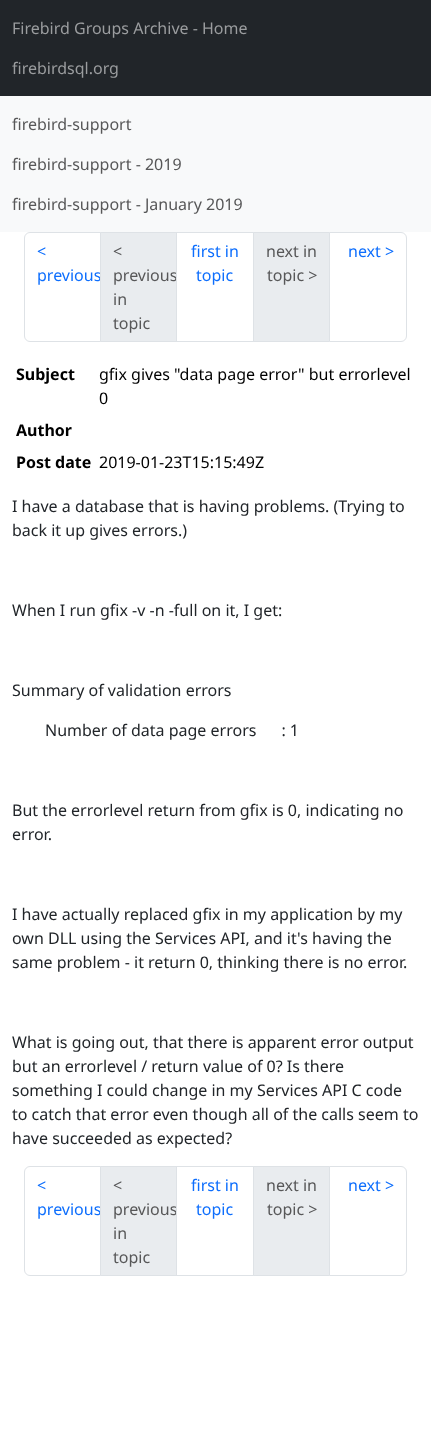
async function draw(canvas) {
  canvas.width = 431;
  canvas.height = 1429;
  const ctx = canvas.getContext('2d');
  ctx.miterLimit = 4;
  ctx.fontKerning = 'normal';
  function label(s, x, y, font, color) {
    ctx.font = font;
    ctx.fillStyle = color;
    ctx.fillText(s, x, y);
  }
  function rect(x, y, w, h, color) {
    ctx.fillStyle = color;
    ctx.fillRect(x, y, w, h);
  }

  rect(0, 0, 431, 1429, '#fff');
  rect(0, 0, 431, 96, '#212529');
  label('Firebird Groups Archive - Home', 12, 34, '16px Noto Sans', '#9b9d9f');
  label('firebirdsql.org', 12, 74, '16px Noto Sans', '#9b9d9f');
  rect(0, 96, 431, 136, '#f8f9fa');
  label('firebird-support', 12, 130, '16px Noto Sans', '#575758');
  label('firebird-support - 2019', 12, 170, '16px Noto Sans', '#575758');
  label('firebird-support - January 2019', 12, 210, '16px Noto Sans', '#575758');
  ctx.beginPath();
  ctx.roundRect(24.5, 232.5, 76, 109, [5.5, 0, 0, 5.5]);
  ctx.strokeStyle = '#dee2e6';
  ctx.stroke();
  label('<', 37, 257, '16px Noto Sans', '#0d6efd');
  label('previous', 37, 281, '16px Noto Sans', '#0d6efd');
  ctx.fillStyle = '#e9ecef';
  ctx.beginPath();
  ctx.rect(100.5, 232.5, 76, 109);
  ctx.fill();
  ctx.stroke();
  label('<', 113, 257, '16px Noto Sans', '#575758');
  label('previous', 113, 281, '16px Noto Sans', '#575758');
  label('in', 113, 305, '16px Noto Sans', '#575758');
  label('topic', 113, 329, '16px Noto Sans', '#575758');
  ctx.strokeRect(176.5, 232.5, 77, 109);
  label('first in', 191, 257, '16px Noto Sans', '#0d6efd');
  label('topic', 196, 281, '16px Noto Sans', '#0d6efd');
  ctx.fillStyle = '#e9ecef';
  ctx.beginPath();
  ctx.rect(253.5, 232.5, 76, 109);
  ctx.fill();
  ctx.stroke();
  label('next in', 266, 257, '16px Noto Sans', '#575758');
  label('topic >', 267, 281, '16px Noto Sans', '#575758');
  ctx.fillStyle = '#fff';
  ctx.beginPath();
  ctx.roundRect(329.5, 232.5, 77, 109, [0, 5.5, 5.5, 0]);
  ctx.fill();
  ctx.stroke();
  label('next >', 348, 257, '16px Noto Sans', '#0d6efd');
  label('Subject', 16, 380, 'bold 16px Noto Sans', '#000');
  label('gfix gives "data page error" but errorlevel', 99, 380, '16px Noto Sans', '#000');
  label('0', 99, 404, '16px Noto Sans', '#000');
  label('Author', 16, 436, 'bold 16px Noto Sans', '#000');
  label('Post date', 16, 468, 'bold 16px Noto Sans', '#000');
  label('2019-01-23T15:15:49Z', 99, 468, '16px Noto Sans', '#000');
  label('I have a database that is having problems. (Trying to', 12, 512, '16px Noto Sans', '#212529');
  label('back it up gives errors.)', 12, 536, '16px Noto Sans', '#212529');
  label('When I run gfix -v -n -full on it, I get:', 12, 616, '16px Noto Sans', '#212529');
  label('Summary of validation errors', 12, 696, '16px Noto Sans', '#212529');
  label('Number of data page errors      : 1', 45, 736, '16px Noto Sans', '#212529');
  label('But the errorlevel return from gfix is 0, indicating no', 12, 816, '16px Noto Sans', '#212529');
  label('error.', 12, 840, '16px Noto Sans', '#212529');
  label('I have actually replaced gfix in my application by my', 12, 920, '16px Noto Sans', '#212529');
  label('own DLL using the Services API, and it\'s having the', 12, 944, '16px Noto Sans', '#212529');
  label('same problem - it return 0, thinking there is no error.', 12, 968, '16px Noto Sans', '#212529');
  label('What is going out, that there is apparent error output', 12, 1048, '16px Noto Sans', '#212529');
  label('but an errorlevel / return value of 0? Is there', 12, 1072, '16px Noto Sans', '#212529');
  label('something I could change in my Services API C code', 12, 1096, '16px Noto Sans', '#212529');
  label('to catch that error even though all of the calls seem to', 12, 1120, '16px Noto Sans', '#212529');
  label('have succeeded as expected?', 12, 1144, '16px Noto Sans', '#212529');
  ctx.beginPath();
  ctx.roundRect(24.5, 1166.5, 76, 109, [5.5, 0, 0, 5.5]);
  ctx.stroke();
  label('<', 37, 1191, '16px Noto Sans', '#0d6efd');
  label('previous', 37, 1215, '16px Noto Sans', '#0d6efd');
  ctx.fillStyle = '#e9ecef';
  ctx.beginPath();
  ctx.rect(100.5, 1166.5, 76, 109);
  ctx.fill();
  ctx.stroke();
  label('<', 113, 1191, '16px Noto Sans', '#575758');
  label('previous', 113, 1215, '16px Noto Sans', '#575758');
  label('in', 113, 1239, '16px Noto Sans', '#575758');
  label('topic', 113, 1263, '16px Noto Sans', '#575758');
  ctx.strokeRect(176.5, 1166.5, 77, 109);
  label('first in', 191, 1191, '16px Noto Sans', '#0d6efd');
  label('topic', 196, 1215, '16px Noto Sans', '#0d6efd');
  ctx.fillStyle = '#e9ecef';
  ctx.beginPath();
  ctx.rect(253.5, 1166.5, 76, 109);
  ctx.fill();
  ctx.stroke();
  label('next in', 266, 1191, '16px Noto Sans', '#575758');
  label('topic >', 267, 1215, '16px Noto Sans', '#575758');
  ctx.fillStyle = '#fff';
  ctx.beginPath();
  ctx.roundRect(329.5, 1166.5, 77, 109, [0, 5.5, 5.5, 0]);
  ctx.fill();
  ctx.stroke();
  label('next >', 348, 1191, '16px Noto Sans', '#0d6efd');
}

draw(document.querySelector('canvas'));
